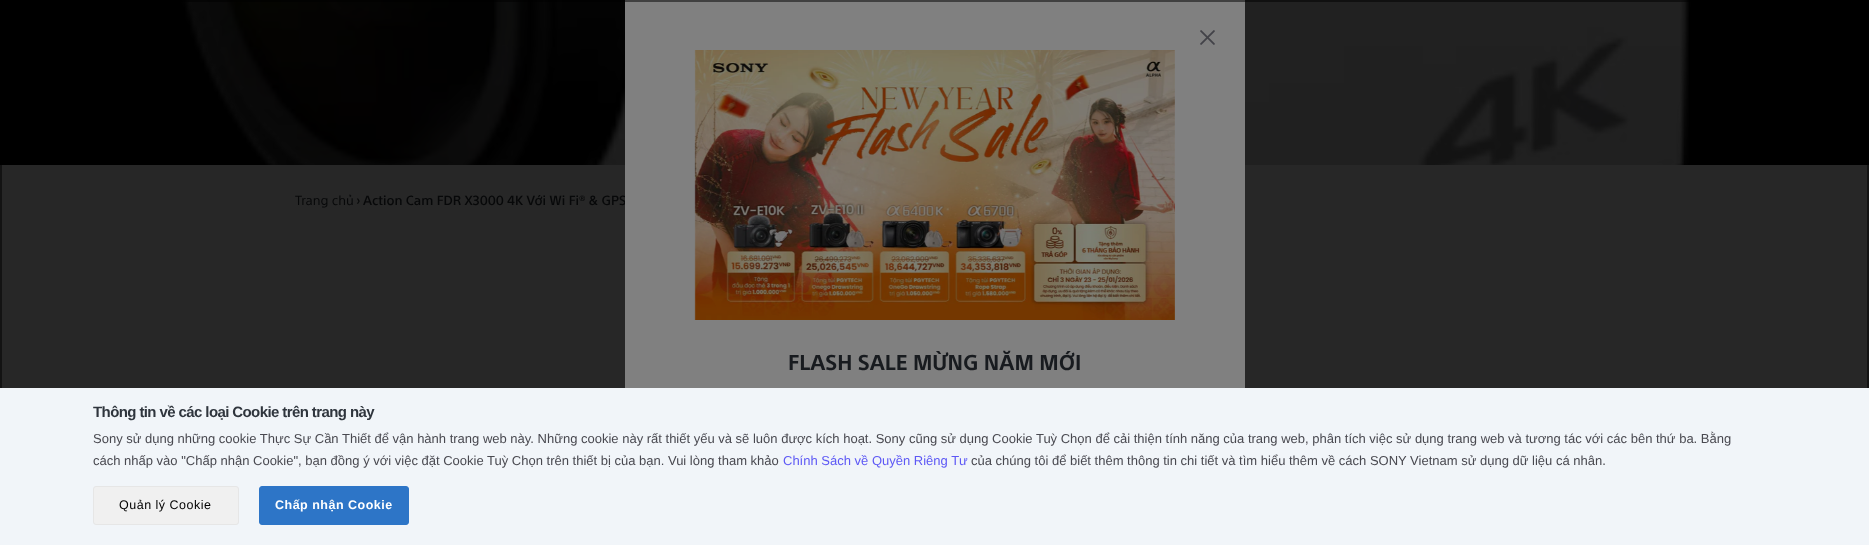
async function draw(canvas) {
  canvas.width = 1869;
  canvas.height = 545;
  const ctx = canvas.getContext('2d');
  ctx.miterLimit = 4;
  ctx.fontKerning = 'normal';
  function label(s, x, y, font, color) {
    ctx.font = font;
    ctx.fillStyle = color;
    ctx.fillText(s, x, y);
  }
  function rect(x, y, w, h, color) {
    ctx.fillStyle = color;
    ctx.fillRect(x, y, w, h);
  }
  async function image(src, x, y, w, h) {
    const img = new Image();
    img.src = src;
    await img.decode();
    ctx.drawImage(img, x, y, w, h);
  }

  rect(0, 0, 1869, 545, '#272727');
  rect(0, 0, 1869, 165, '#000');
  await image('assets/img1.png', 181, 0, 1510, 165);
  label('Trang chủ', 295, 205, '13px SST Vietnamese', '#070809');
  label('›', 356, 205, '500 13px SST Vietnamese', '#070809');
  label('Action Cam FDR X3000 4K Với Wi Fi® & GPS', 363, 205, '500 13px SST Vietnamese', '#070809');
  rect(625, 0, 620, 388, '#808080');
  await image('assets/img2.png', 1200, 30, 15, 15);
  await image('assets/img3.png', 694, 50, 481, 270);
  label('FLASH SALE MỪNG NĂM MỚI', 788, 370, 'bold 21px SST Vietnamese', '#181b1f');
  ctx.strokeStyle = '#00000080';
  ctx.lineWidth = 2;
  ctx.strokeRect(1, 1, 1867, 543);
  rect(0, 388, 1869, 157, '#f1f5f9');
  ctx.letterSpacing = '-0.6px';
  label('Thông tin về các loại Cookie trên trang này', 93, 417, 'bold 15px Liberation Sans', '#2f353d');
  ctx.letterSpacing = '0px';
  label('Sony sử dụng những cookie Thực Sự Cần Thiết để vận hành trang web này. Những cookie này rất thiết yếu và sẽ luôn được kích hoạt. Sony cũng sử dụng Cookie Tuỳ Chọn để cải thiện tính năng của trang web, phân tích việc sử dụng trang web và tương tác với các bên thứ ba. Bằng', 93, 443, '13px Liberation Sans', '#494950');
  label('cách nhấp vào "Chấp nhận Cookie", bạn đồng ý với việc đặt Cookie Tuỳ Chọn trên thiết bị của bạn. Vui lòng tham khảo', 93, 465, '13px Liberation Sans', '#494950');
  label('Chính Sách về Quyền Riêng Tư', 783, 465, '13px Liberation Sans', '#5d58f5');
  label('của chúng tôi để biết thêm thông tin chi tiết và tìm hiểu thêm về cách SONY Vietnam sử dụng dữ liệu cá nhân.', 971, 465, '13px Liberation Sans', '#494950');
  ctx.fillStyle = '#f0f0f0';
  ctx.beginPath();
  ctx.roundRect(93.5, 486.5, 145, 38, 2.5);
  ctx.fill();
  ctx.strokeStyle = '#e6e6e6';
  ctx.lineWidth = 1;
  ctx.stroke();
  ctx.letterSpacing = '0.5px';
  label('Quản lý Cookie', 119, 509, '12.5px Liberation Sans', '#000');
  ctx.fillStyle = '#2d75c7';
  ctx.beginPath();
  ctx.roundRect(259.5, 486.5, 149, 38, 2.5);
  ctx.fill();
  ctx.strokeStyle = '#2d75c7';
  ctx.stroke();
  label('Chấp nhận Cookie', 275, 509, 'bold 12.5px Liberation Sans', '#fff');
}

draw(document.querySelector('canvas'));
